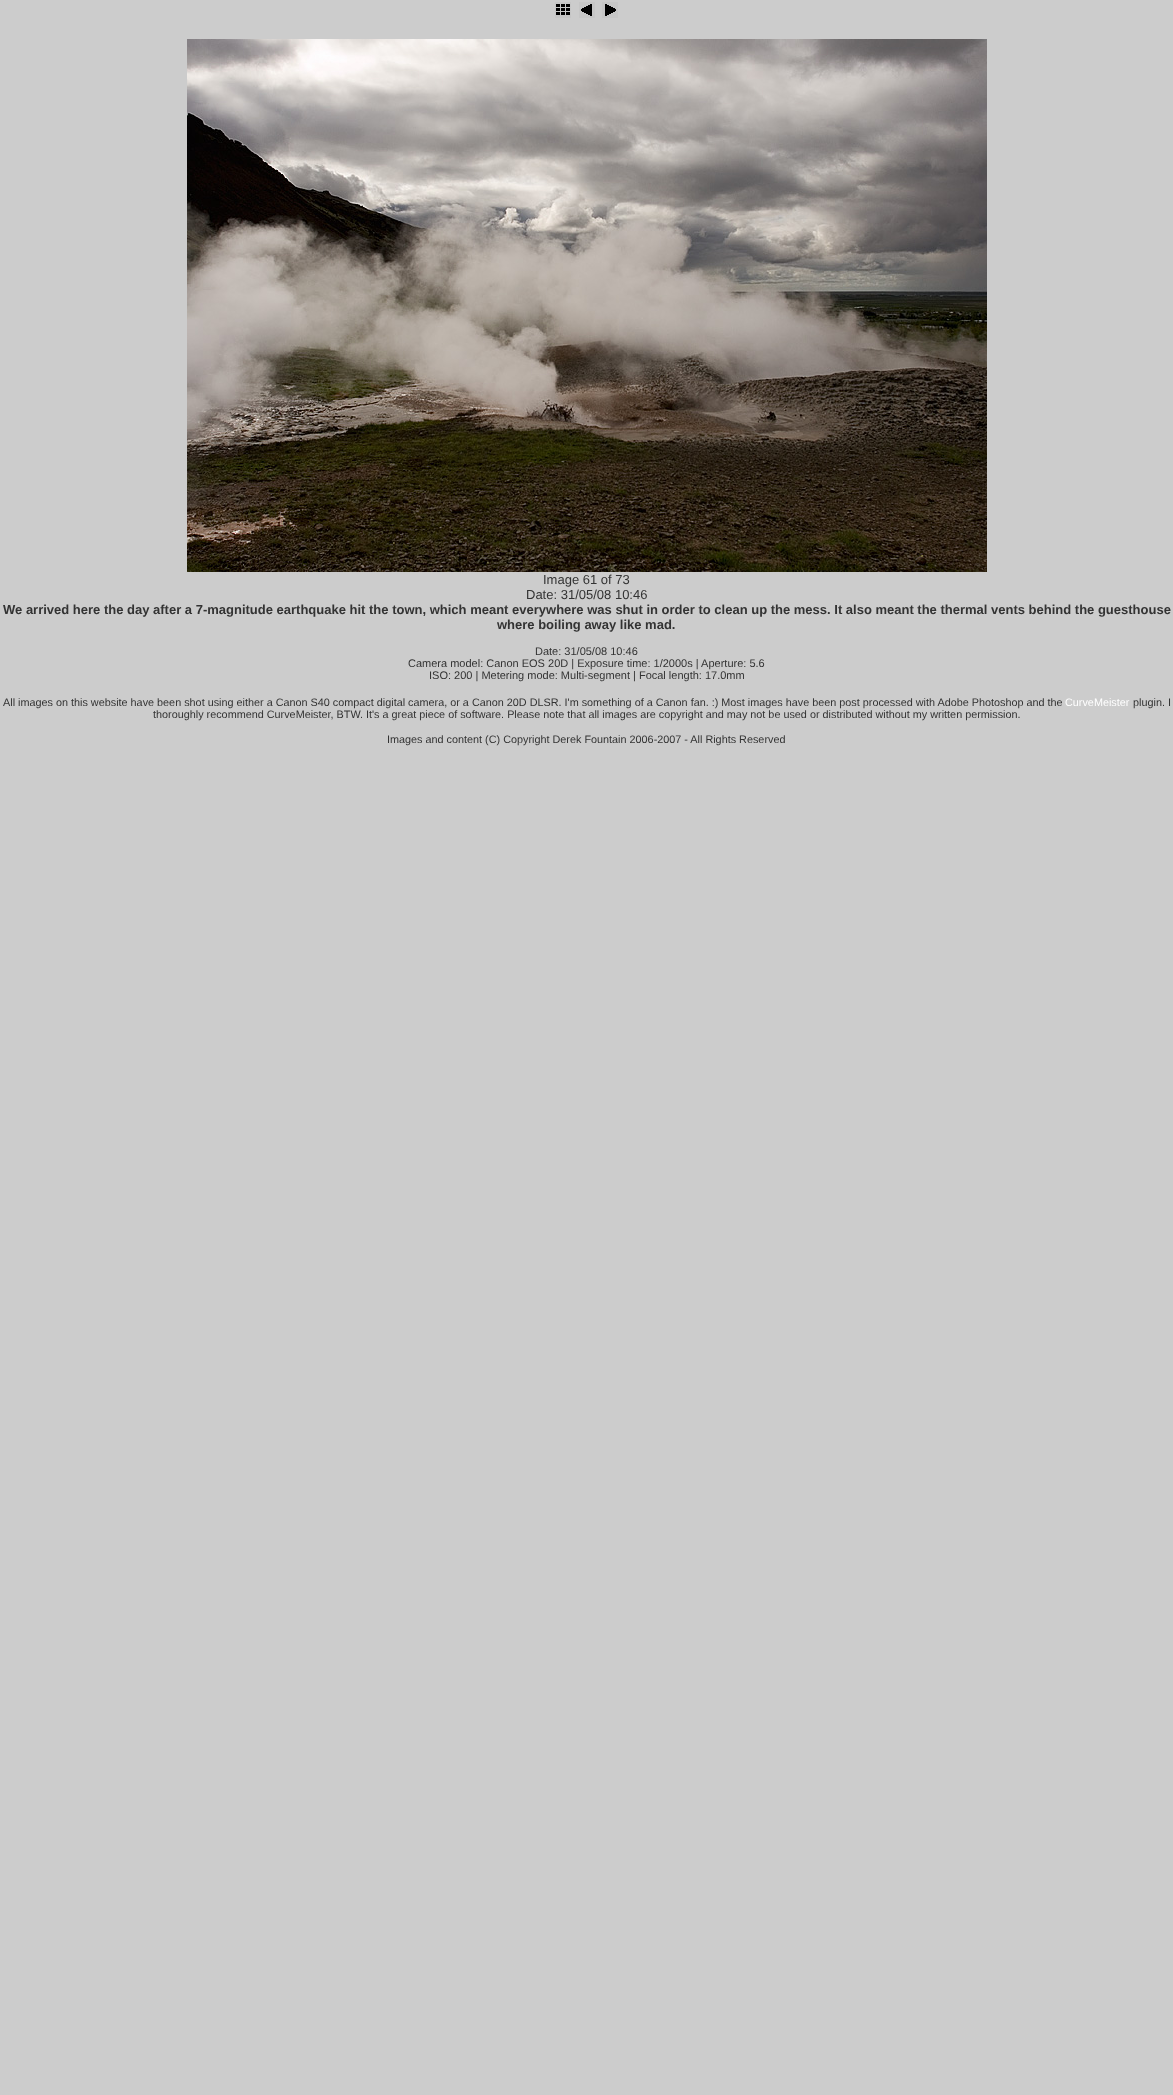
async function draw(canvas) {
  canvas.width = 1173;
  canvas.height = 2095;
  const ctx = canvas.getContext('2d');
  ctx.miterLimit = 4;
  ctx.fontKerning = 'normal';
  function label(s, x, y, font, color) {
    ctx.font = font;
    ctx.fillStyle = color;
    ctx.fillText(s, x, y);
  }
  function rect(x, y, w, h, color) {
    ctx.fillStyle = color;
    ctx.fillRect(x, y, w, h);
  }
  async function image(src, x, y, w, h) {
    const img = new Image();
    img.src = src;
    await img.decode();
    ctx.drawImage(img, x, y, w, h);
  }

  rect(0, 0, 1173, 2095, '#ccc');
  await image('assets/img1.png', 555, 2, 16, 16);
  await image('assets/img2.png', 579, 2, 16, 16);
  await image('assets/img3.png', 602, 2, 16, 16);
  await image('assets/img4.png', 187, 39, 800, 533);
  label('Image 61 of 73', 543, 584, '13px Liberation Sans', '#333');
  label('Date: 31/05/08 10:46', 526, 599, '13px Liberation Sans', '#333');
  label('We arrived here the day after a 7-magnitude earthquake hit the town, which meant everywhere was shut in order to clean up the mess. It also meant the thermal vents behind the guesthouse', 3, 614, 'bold 13px Liberation Sans', '#333');
  label('where boiling away like mad.', 497, 629, 'bold 13px Liberation Sans', '#333');
  label('Date: 31/05/08 10:46', 535, 655, '11px Liberation Sans', '#333');
  label('Camera model: Canon EOS 20D | Exposure time: 1/2000s | Aperture: 5.6', 408, 667, '11px Liberation Sans', '#333');
  label('ISO: 200 | Metering mode: Multi-segment | Focal length: 17.0mm', 429, 679, '11px Liberation Sans', '#333');
  label('All images on this website have been shot using either a Canon S40 compact digital camera, or a Canon 20D DLSR. I\'m something of a Canon fan. :) Most images have been post processed with Adobe Photoshop and the', 3, 706, '10.83px Liberation Sans', '#333');
  label('CurveMeister', 1065, 706, '10.83px Liberation Sans', '#fff');
  label('plugin. I', 1133, 706, '10.83px Liberation Sans', '#333');
  label('thoroughly recommend CurveMeister, BTW. It\'s a great piece of software. Please note that all images are copyright and may not be used or distributed without my written permission.', 153, 718, '10.83px Liberation Sans', '#333');
  label('Images and content (C) Copyright Derek Fountain 2006-2007 - All Rights Reserved', 387, 743, '10.83px Liberation Sans', '#333');
}

draw(document.querySelector('canvas'));
